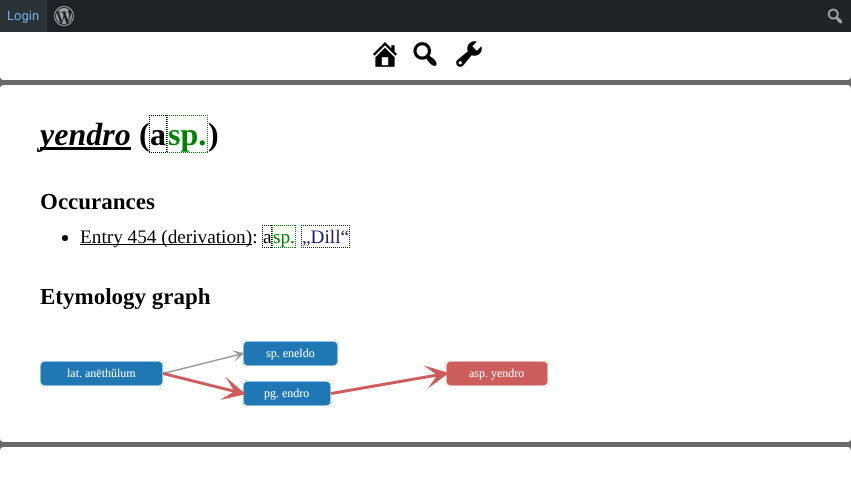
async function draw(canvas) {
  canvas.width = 851;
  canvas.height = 495;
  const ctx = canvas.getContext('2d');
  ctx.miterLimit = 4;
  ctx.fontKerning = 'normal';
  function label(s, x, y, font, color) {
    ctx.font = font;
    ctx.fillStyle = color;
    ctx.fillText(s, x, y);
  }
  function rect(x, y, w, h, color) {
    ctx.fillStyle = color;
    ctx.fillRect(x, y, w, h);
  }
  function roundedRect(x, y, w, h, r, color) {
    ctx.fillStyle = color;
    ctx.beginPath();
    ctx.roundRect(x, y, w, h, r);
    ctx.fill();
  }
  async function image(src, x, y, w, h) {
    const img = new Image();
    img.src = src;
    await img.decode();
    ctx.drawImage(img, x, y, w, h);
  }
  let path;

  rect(0, 0, 851, 495, '#696969');
  rect(47, 0, 804, 32, '#1d2327');
  rect(0, 0, 47, 32, '#2c3338');
  label('Login', 7, 20, '13px Roboto', '#72aee6');
  await image('assets/img1.png', 54, 6, 20, 20);
  await image('assets/img2.png', 827, 8, 16, 16);
  ctx.fillStyle = '#fff';
  ctx.beginPath();
  ctx.roundRect(0, 32, 851, 48, [0, 0, 4, 4]);
  ctx.fill();
  await image('assets/img3.png', 373, 42, 24, 25);
  await image('assets/img4.png', 413, 42, 24, 24);
  await image('assets/img5.png', 456, 41, 26, 26);
  roundedRect(0, 85, 851, 357, 4, '#fff');
  rect(40, 147, 91, 3, '#000');
  label('yendro', 40, 145, 'italic bold 32px Liberation Serif', '#000');
  label('(', 139, 145, 'bold 32px Liberation Serif', '#000');
  path = new Path2D('M149 115.5H167M166.5 115V153M149 152.5H167M149.5 115V153');
  ctx.strokeStyle = '#000';
  ctx.setLineDash([1, 1]);
  ctx.stroke(path);
  label('a', 150, 145, 'bold 32px Liberation Serif', '#000');
  path = new Path2D('M167 115.5H208M207.5 115V153M167 152.5H208M167.5 115V153');
  ctx.strokeStyle = '#008000';
  ctx.stroke(path);
  label('sp.', 168, 145, 'bold 32px Liberation Serif', '#008000');
  label(')', 208, 145, 'bold 32px Liberation Serif', '#000');
  label('Occurances', 40, 209, 'bold 23px Liberation Serif', '#000');
  ctx.beginPath();
  ctx.arc(65, 238, 3, 0, 2 * Math.PI);
  ctx.fill();
  rect(80, 244, 172, 1, '#000');
  label('Entry 454 (derivation):', 80, 243, '19.25px Liberation Serif', '#000');
  path = new Path2D('M262 225.5H272M271.5 225V248M262 247.5H272M262.5 225V248');
  ctx.strokeStyle = '#000';
  ctx.stroke(path);
  label('a', 263, 243, '19.25px Liberation Serif', '#000');
  path = new Path2D('M272 225.5H296M295.5 225V248M272 247.5H296M272.5 225V248');
  ctx.strokeStyle = '#008000';
  ctx.stroke(path);
  label('sp.', 273, 243, '19.25px Liberation Serif', '#008000');
  path = new Path2D('M301 225.5H350M349.5 225V248M301 247.5H350M301.5 225V248');
  ctx.strokeStyle = '#191970';
  ctx.stroke(path);
  label('„Dill“', 302, 243, '19.25px Liberation Serif', '#191970');
  label('Etymology graph', 40, 304, 'bold 23px Liberation Serif', '#000');
  await image('assets/img6.png', 40, 340, 509, 67);
  label('sp. eneldo', 266, 357, '12px Liberation Serif', '#fff');
  label('lat. anēthŭlum', 67, 377, '12px Liberation Serif', '#fff');
  label('asp. yendro', 469, 377, '12px Liberation Serif', '#fff');
  label('pg. endro', 264, 397, '12px Liberation Serif', '#fff');
  roundedRect(0, 447, 851, 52, 4, '#fff');
}

draw(document.querySelector('canvas'));
